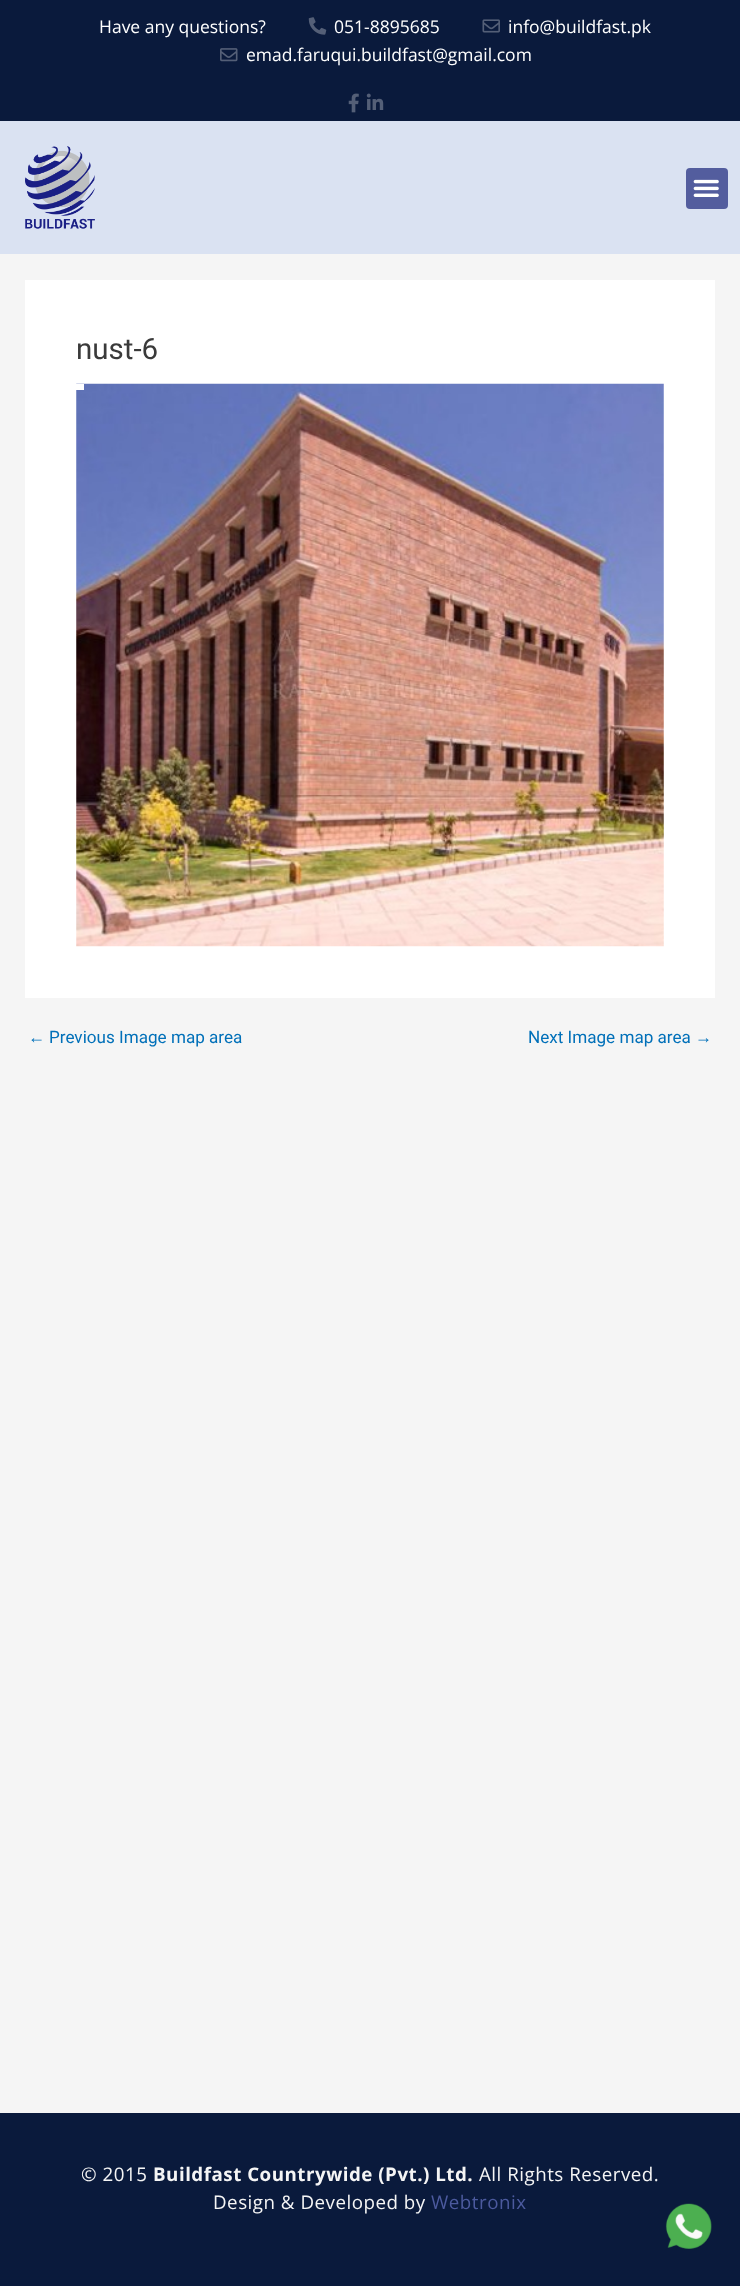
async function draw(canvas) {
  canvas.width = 740;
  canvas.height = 2286;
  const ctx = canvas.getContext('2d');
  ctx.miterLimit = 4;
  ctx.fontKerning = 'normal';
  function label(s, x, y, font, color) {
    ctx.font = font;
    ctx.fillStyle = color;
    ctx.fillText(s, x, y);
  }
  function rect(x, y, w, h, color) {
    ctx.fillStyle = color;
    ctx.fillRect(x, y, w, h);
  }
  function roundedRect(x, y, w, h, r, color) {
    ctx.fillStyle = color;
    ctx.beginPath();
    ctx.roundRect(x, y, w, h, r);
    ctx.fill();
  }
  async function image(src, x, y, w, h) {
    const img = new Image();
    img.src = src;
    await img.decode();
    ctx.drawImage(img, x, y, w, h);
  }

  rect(0, 0, 740, 2286, '#f5f5f5');
  rect(0, 0, 740, 121, '#0a1a3c');
  label('Have any questions?', 99, 33, '17.5px Open Sans', '#fff');
  await image('assets/img1.png', 308, 17, 19, 18);
  label('051-8895685', 334, 33, '17.5px Open Sans', '#fff');
  await image('assets/img2.png', 482, 19, 18, 14);
  label('info@buildfast.pk', 508, 33, '17.5px Open Sans', '#fff');
  await image('assets/img3.png', 220, 48, 18, 14);
  label('emad.faruqui.buildfast@gmail.com', 246, 61, '17.5px Open Sans', '#fff');
  await image('assets/img4.png', 348, 93, 11, 20);
  await image('assets/img5.png', 366, 93, 18, 17);
  rect(0, 121, 740, 133, '#dae2f2');
  await image('assets/img6.png', 25, 146, 70, 83);
  roundedRect(686, 168, 42, 41, 4, '#535d9e');
  await image('assets/img7.png', 693, 179, 26, 18);
  rect(25, 280, 690, 718, '#fff');
  label('nust-6', 76, 359, '29.5px Roboto', '#3a3a3a');
  await image('assets/img8.png', 76, 383, 588, 564);
  rect(76, 384, 8, 6, '#fff');
  label('←', 28, 1043, '17.1px Liberation Sans', '#0170b9');
  label('Previous Image map area', 49, 1043, '17.1px Roboto', '#0170b9');
  label('Next Image map area', 528, 1043, '17.1px Roboto', '#0170b9');
  label('→', 695, 1043, '17.1px Liberation Sans', '#0170b9');
  rect(0, 2113, 740, 173, '#0a1a3c');
  ctx.letterSpacing = '0.5px';
  label('© 2015', 81, 2181, '18.75px Open Sans', '#f5f5f5');
  label('Buildfast Countrywide (Pvt.) Ltd.', 153, 2181, 'bold 18.75px Open Sans', '#f5f5f5');
  label('All Rights Reserved.', 479, 2181, '18.75px Open Sans', '#f5f5f5');
  label('Design & Developed by', 213, 2209, '18.75px Open Sans', '#f5f5f5');
  label('Webtronix', 431, 2209, '18.75px Open Sans', '#4c5a9e');
  await image('assets/img9.png', 665, 2203, 47, 46);
}

draw(document.querySelector('canvas'));
